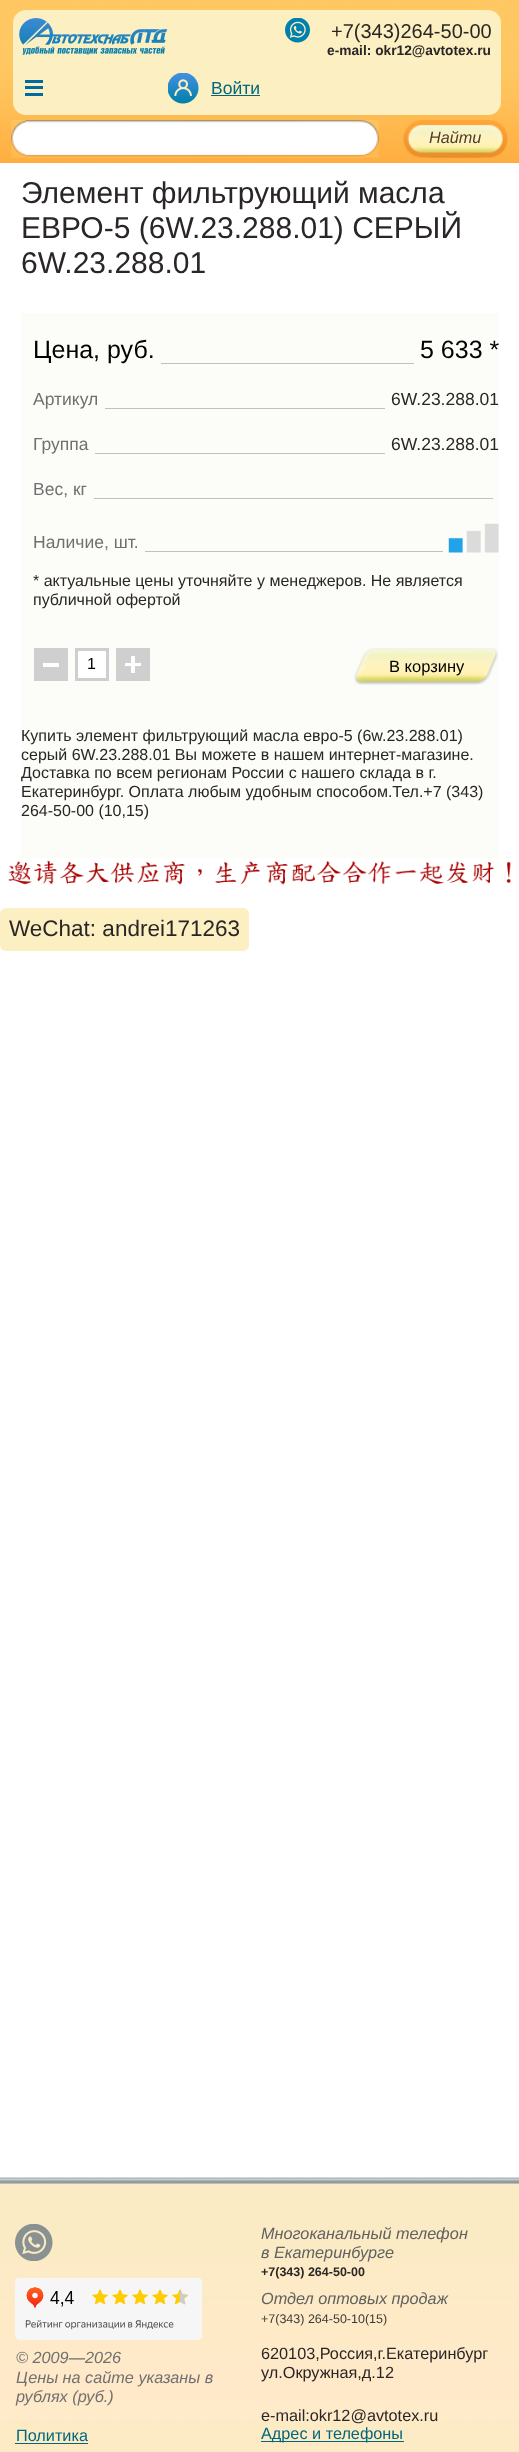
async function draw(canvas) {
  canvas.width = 519;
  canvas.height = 2452;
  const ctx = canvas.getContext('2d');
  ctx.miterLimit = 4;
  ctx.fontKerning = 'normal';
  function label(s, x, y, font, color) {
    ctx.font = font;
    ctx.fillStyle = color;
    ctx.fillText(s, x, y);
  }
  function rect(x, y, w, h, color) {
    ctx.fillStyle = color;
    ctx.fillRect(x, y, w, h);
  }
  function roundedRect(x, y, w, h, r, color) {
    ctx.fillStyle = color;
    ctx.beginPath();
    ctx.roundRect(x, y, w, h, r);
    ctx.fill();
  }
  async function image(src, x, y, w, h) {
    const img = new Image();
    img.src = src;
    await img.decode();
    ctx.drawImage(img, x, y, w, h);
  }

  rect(0, 0, 519, 2452, '#fff');
  rect(0, 162, 519, 1, '#ffa735');
  await image('assets/img1.png', 0, 0, 519, 163);
  roundedRect(13, 10, 488, 105, 13, '#fcefc1');
  await image('assets/img2.png', 285, 18, 25, 25);
  label('+7(343)264-50-00', 331, 38, '20px Liberation Sans', '#2a2626');
  label('e-mail: okr12@avtotex.ru', 327, 55, 'bold 13.75px Liberation Sans', '#2a2626');
  await image('assets/img3.png', 168, 73, 31, 31);
  label('Войти', 211, 94, '17.5px Liberation Sans', '#00677d');
  rect(211, 95, 49, 1, '#00677d');
  rect(25, 80, 18, 3, '#006aa1');
  rect(25, 86, 18, 3, '#006aa1');
  rect(25, 93, 18, 3, '#006aa1');
  await image('assets/img4.png', 19, 18, 149, 37);
  await image('assets/img5.png', 11, 120, 353, 38);
  await image('assets/img6.png', 26, 120, 353, 38);
  await image('assets/img7.png', 403, 120, 79, 38);
  await image('assets/img8.png', 429, 120, 79, 38);
  label('Найти', 429, 143, 'italic 16.25px Liberation Sans', '#4f3c2a');
  label('Элемент фильтрующий масла', 21, 203, '30px Liberation Sans', '#2a2626');
  label('ЕВРО-5 (6W.23.288.01) СЕРЫЙ', 21, 238, '30px Liberation Sans', '#2a2626');
  label('6W.23.288.01', 21, 273, '30px Liberation Sans', '#2a2626');
  rect(21, 313, 478, 545, '#fcfcf9');
  label('Цена, руб.', 33, 358, '25px Liberation Sans', '#000');
  label('5 633 *', 420, 358, '25px Liberation Sans', '#000');
  rect(161, 363, 253, 1, '#c0c0c0');
  label('Артикул', 33, 405, '17.5px Liberation Sans', '#707070');
  label('6W.23.288.01', 391, 405, '17.5px Liberation Sans', '#2a2626');
  rect(105, 408, 280, 1, '#c0c0c0');
  label('Группа', 33, 450, '17.5px Liberation Sans', '#707070');
  label('6W.23.288.01', 391, 450, '17.5px Liberation Sans', '#2a2626');
  rect(95, 453, 290, 1, '#c0c0c0');
  label('Вес, кг', 33, 495, '17.5px Liberation Sans', '#707070');
  rect(94, 498, 399, 1, '#c0c0c0');
  label('Наличие, шт.', 33, 548, '17.5px Liberation Sans', '#707070');
  await image('assets/img9.png', 448, 523, 51, 30);
  rect(145, 551, 298, 1, '#c0c0c0');
  label('* актуальные цены уточняйте у менеджеров. Не является', 33, 586, '16px Liberation Sans', '#2a2626');
  label('публичной офертой', 33, 605, '16px Liberation Sans', '#2a2626');
  rect(34, 648, 34, 33, '#cfcfcf');
  rect(43, 663, 16, 4, '#fff');
  ctx.beginPath();
  ctx.rect(76.5, 649.5, 31, 30);
  ctx.fill();
  ctx.strokeStyle = '#cfcfcf';
  ctx.lineWidth = 3;
  ctx.stroke();
  label('1', 87, 669, '16px Liberation Sans', '#000');
  rect(116, 648, 34, 33, '#cfcfcf');
  rect(131, 656, 4, 17, '#fff');
  rect(125, 663, 16, 3, '#fff');
  await image('assets/img10.png', 354, 648, 144, 37);
  label('В корзину', 389, 672, '16.5px Liberation Sans', '#000');
  label('Купить элемент фильтрующий масла евро-5 (6w.23.288.01)', 21, 741, '16px Liberation Sans', '#2a2626');
  label('серый 6W.23.288.01 Вы можете в нашем интернет-магазине.', 21, 760, '16px Liberation Sans', '#2a2626');
  ctx.save();
  ctx.beginPath();
  ctx.rect(21, 175, 478, 683);
  ctx.clip();
  label('Доставка по всем регионам России с нашего склада в г.', 21, 778, '16px Liberation Sans', '#2a2626');
  ctx.restore();
  label('Екатеринбург. Оплата любым удобным способом.Тел.+7 (343)', 21, 797, '16px Liberation Sans', '#2a2626');
  label('264-50-00 (10,15)', 21, 816, '16px Liberation Sans', '#2a2626');
  await image('assets/img11.png', 8, 860, 503, 25);
  roundedRect(0, 908, 249, 43, 6, '#fcefc1');
  label('WeChat: andrei171263', 9, 936, '22.5px Liberation Sans', '#2a2626');
  rect(0, 2420, 519, 32, '#fcebc5');
  await image('assets/img12.png', 0, 2177, 519, 243);
  await image('assets/img13.png', 15, 2224, 38, 37);
  await image('assets/img14.png', 15, 2278, 188, 62);
  label('© 2009—2026', 16, 2363, 'italic 16.25px Liberation Sans', '#707070');
  label('Цены на сайте указаны в', 16, 2383, 'italic 16.25px Liberation Sans', '#707070');
  label('рублях (руб.)', 16, 2402, 'italic 16.25px Liberation Sans', '#707070');
  label('Политика', 16, 2441, '16.25px Liberation Sans', '#00677d');
  rect(15, 2443, 73, 1, '#00677d');
  label('Многоканальный телефон', 261, 2239, 'italic 16.25px Liberation Sans', '#616161');
  label('в Екатеринбурге', 261, 2258, 'italic 16.25px Liberation Sans', '#616161');
  label('+7(343) 264-50-00', 261, 2276, 'bold 12.5px Liberation Sans', '#2a2626');
  label('Отдел оптовых продаж', 261, 2304, 'italic 16.25px Liberation Sans', '#616161');
  label('+7(343) 264-50-10(15)', 261, 2323, '12.5px Liberation Sans', '#3c3b36');
  label('620103,Россия,г.Екатеринбург', 261, 2359, '16.25px Liberation Sans', '#2a2626');
  label('ул.Окружная,д.12', 261, 2378, '16.25px Liberation Sans', '#2a2626');
  label('e-mail:okr12@avtotex.ru', 261, 2421, '16.25px Liberation Sans', '#2a2626');
  rect(261, 2441, 143, 1, '#00677d');
  label('Адрес и телефоны', 261, 2439, '16.25px Liberation Sans', '#00677d');
}

draw(document.querySelector('canvas'));
